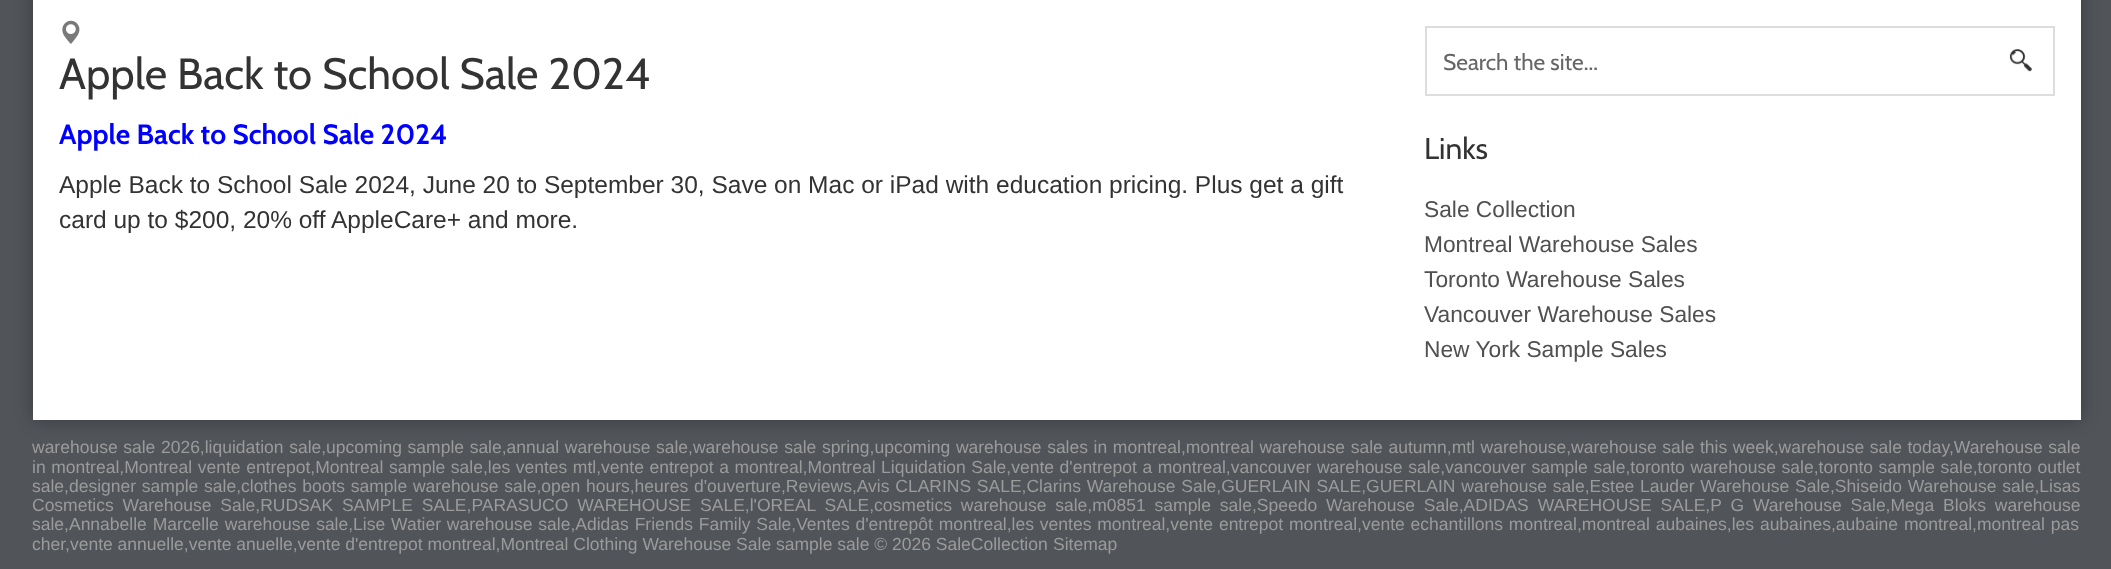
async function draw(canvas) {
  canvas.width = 2111;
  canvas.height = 569;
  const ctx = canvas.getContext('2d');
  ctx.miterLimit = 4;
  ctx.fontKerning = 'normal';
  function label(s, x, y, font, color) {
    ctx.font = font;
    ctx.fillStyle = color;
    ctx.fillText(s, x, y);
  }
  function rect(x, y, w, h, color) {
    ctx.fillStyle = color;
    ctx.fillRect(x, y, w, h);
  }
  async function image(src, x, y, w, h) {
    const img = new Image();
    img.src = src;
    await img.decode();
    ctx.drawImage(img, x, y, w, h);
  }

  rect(0, 0, 2111, 569, '#515459');
  ctx.fillStyle = '#0000004d';
  ctx.filter = 'blur(9px)';
  ctx.beginPath();
  ctx.rect(33, -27, 2048, 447);
  ctx.fill();
  ctx.filter = 'none';
  rect(33, 0, 2048, 420, '#fff');
  await image('assets/img1.png', 62, 20, 18, 24);
  label('Apple Back to School Sale 2024', 59, 89, '43.75px Cabin', '#333');
  label('Apple Back to School Sale 2024', 59, 144, 'bold 28px Cabin', '#00f');
  label('Apple Back to School Sale 2024, June 20 to September 30, Save on Mac or iPad with education pricing. Plus get a gift', 59, 193, '24.5px Liberation Sans', '#333');
  label('card up to $200, 20% off AppleCare+ and more.', 59, 228, '24.5px Liberation Sans', '#333');
  ctx.strokeStyle = '#ddd';
  ctx.lineWidth = 2;
  ctx.strokeRect(1426, 27, 628, 68);
  label('Search the site...', 1443, 70, '22.75px Cabin', '#666');
  await image('assets/img2.png', 2009, 49, 23, 23);
  label('Links', 1424, 159, '30px Cabin', '#333');
  label('Sale Collection', 1424, 217, '22.75px Liberation Sans', '#505050');
  label('Montreal Warehouse Sales', 1424, 252, '22.75px Liberation Sans', '#505050');
  label('Toronto Warehouse Sales', 1424, 287, '22.75px Liberation Sans', '#505050');
  label('Vancouver Warehouse Sales', 1424, 322, '22.75px Liberation Sans', '#505050');
  label('New York Sample Sales', 1424, 357, '22.75px Liberation Sans', '#505050');
  ctx.wordSpacing = '0.75px';
  label('warehouse sale 2026,liquidation sale,upcoming sample sale,annual warehouse sale,warehouse sale spring,upcoming warehouse sales in montreal,montreal warehouse sale autumn,mtl warehouse,warehouse sale this week,warehouse sale today,Warehouse sale', 32, 453, '17.5px Liberation Sans', '#9b9b9b');
  ctx.wordSpacing = '0.7px';
  label('in montreal,Montreal vente entrepot,Montreal sample sale,les ventes mtl,vente entrepot a montreal,Montreal Liquidation Sale,vente d\'entrepot a montreal,vancouver warehouse sale,vancouver sample sale,toronto warehouse sale,toronto sample sale,toronto outlet', 32, 473, '17.5px Liberation Sans', '#9b9b9b');
  ctx.wordSpacing = '0.9px';
  label('sale,designer sample sale,clothes boots sample warehouse sale,open hours,heures d\'ouverture,Reviews,Avis CLARINS SALE,Clarins Warehouse Sale,GUERLAIN SALE,GUERLAIN warehouse sale,Estee Lauder Warehouse Sale,Shiseido Warehouse sale,Lisas', 32, 492, '17.5px Liberation Sans', '#9b9b9b');
  ctx.wordSpacing = '4px';
  label('Cosmetics Warehouse Sale,RUDSAK SAMPLE SALE,PARASUCO WAREHOUSE SALE,l\'OREAL SALE,cosmetics warehouse sale,m0851 sample sale,Speedo Warehouse Sale,ADIDAS WAREHOUSE SALE,P G Warehouse Sale,Mega Bloks warehouse', 32, 511, '17.5px Liberation Sans', '#9b9b9b');
  ctx.wordSpacing = '1px';
  label('sale,Annabelle Marcelle warehouse sale,Lise Watier warehouse sale,Adidas Friends Family Sale,Ventes d\'entrepôt montreal,les ventes montreal,vente entrepot montreal,vente echantillons montreal,montreal aubaines,les aubaines,aubaine montreal,montreal pas', 32, 530, '17.5px Liberation Sans', '#9b9b9b');
  ctx.wordSpacing = '0px';
  label('cher,vente annuelle,vente anuelle,vente d\'entrepot montreal,Montreal Clothing Warehouse Sale sample sale © 2026 SaleCollection', 32, 550, '17.5px Liberation Sans', '#9b9b9b');
  label('Sitemap', 1053, 550, '17.5px Liberation Sans', '#9b9b9b');
}

draw(document.querySelector('canvas'));
